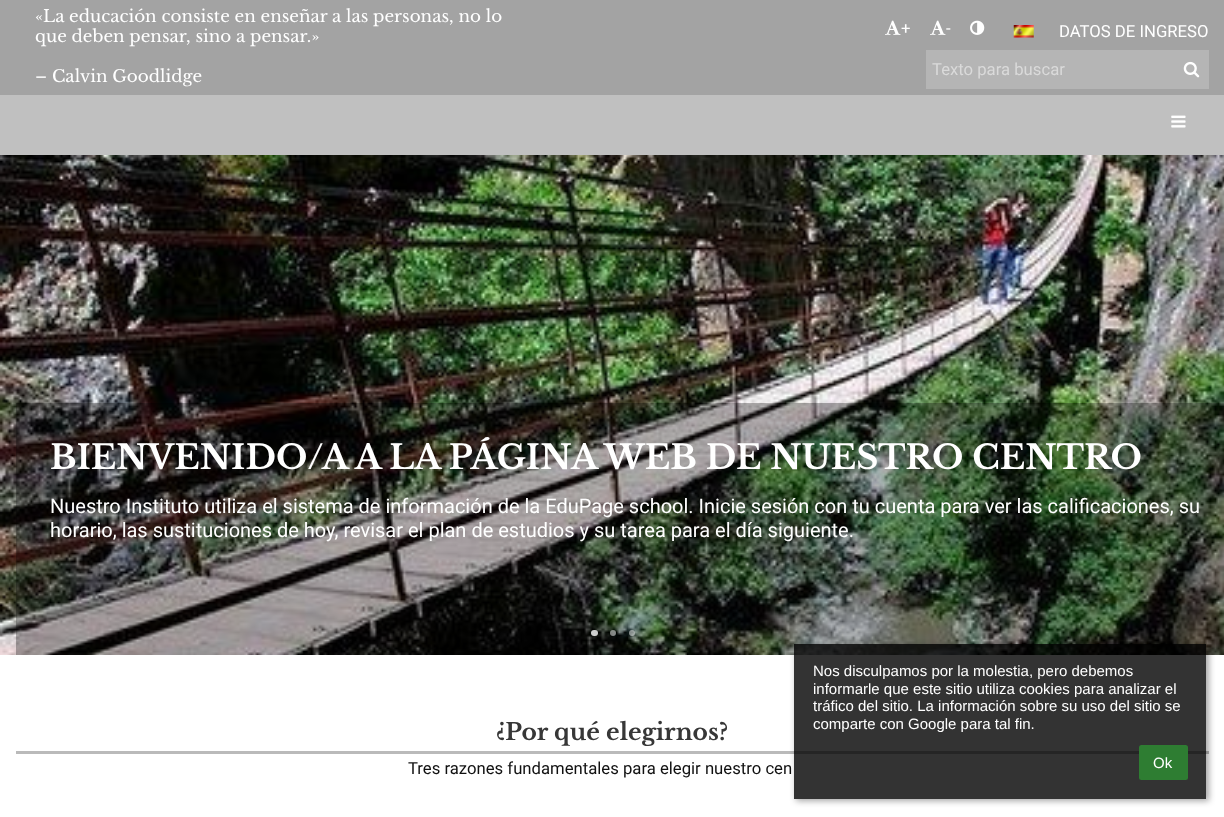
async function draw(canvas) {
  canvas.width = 1224;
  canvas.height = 817;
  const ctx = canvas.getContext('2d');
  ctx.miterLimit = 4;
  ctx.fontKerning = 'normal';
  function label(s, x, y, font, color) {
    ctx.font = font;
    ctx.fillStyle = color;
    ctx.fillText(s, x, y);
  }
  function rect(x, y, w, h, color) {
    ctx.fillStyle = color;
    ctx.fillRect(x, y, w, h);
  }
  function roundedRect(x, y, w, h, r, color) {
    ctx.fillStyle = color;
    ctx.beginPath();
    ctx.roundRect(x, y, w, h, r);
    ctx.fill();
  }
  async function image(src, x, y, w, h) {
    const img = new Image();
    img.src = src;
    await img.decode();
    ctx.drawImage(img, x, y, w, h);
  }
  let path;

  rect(0, 0, 1224, 817, '#fff');
  rect(0, 95, 1224, 60, '#c0c0c0');
  rect(0, 0, 1224, 95, '#a3a3a3');
  label('«La educación consiste en enseñar a las personas, no lo', 35, 22, '16.75px Libre Baskerville', '#fff');
  label('que deben pensar, sino a pensar.»', 35, 42, '16.75px Libre Baskerville', '#fff');
  label('– Calvin Goodlidge', 35, 82, '16.75px Libre Baskerville', '#fff');
  await image('assets/img1.png', 885, 20, 16, 15);
  label('+', 901, 34, '16.7px Roboto', '#fff');
  await image('assets/img1.png', 930, 20, 16, 15);
  label('-', 946, 34, '16.7px Roboto', '#fff');
  await image('assets/img2.png', 970, 20, 15, 15);
  await image('assets/img3.png', 1013, 25, 21, 13);
  label('DATOS DE INGRESO', 1059, 37, '16.7px Roboto', '#fff');
  rect(926, 50, 283, 39, '#b5b5b5');
  label('Texto para buscar', 932, 75, '16.7px Roboto', '#dadada');
  await image('assets/img4.png', 1183, 61, 17, 17);
  await image('assets/img5.png', 1171, 115, 15, 13);
  await image('assets/img6.png', 0, 155, 1224, 500);
  rect(16, 403, 1208, 252, '#0000004d');
  label('BIENVENIDO/A A LA PÁGINA WEB DE NUESTRO CENTRO', 50, 469, 'bold 33.3px Libre Baskerville', '#fff');
  label('Nuestro Instituto utiliza el sistema de información de la EduPage school. Inicie sesión con tu cuenta para ver las calificaciones, su', 50, 513, '20px Roboto', '#fff');
  label('horario, las sustituciones de hoy, revisar el plan de estudios y su tarea para el día siguiente.', 50, 537, '20px Roboto', '#fff');
  roundedRect(591, 630, 7, 6, 3, '#ffffffcc');
  ctx.fillStyle = '#ffffff80';
  ctx.beginPath();
  ctx.arc(613, 633, 3, 0, 2 * Math.PI);
  ctx.fill();
  ctx.beginPath();
  ctx.arc(632, 633, 3, 0, 2 * Math.PI);
  ctx.fill();
  rect(16, 751, 1193, 3, '#bababa');
  label('¿Por qué elegirnos?', 496, 740, 'bold 23.25px Libre Baskerville', '#373737');
  label('Tres razones fundamentales para elegir nuestro cen', 408, 774, '16.7px Roboto', '#111');
  ctx.save();
  path = new Path2D('M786 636H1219V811H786ZM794 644H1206V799H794Z');
  ctx.clip(path, 'evenodd');
  ctx.fillStyle = '#00000059';
  ctx.filter = 'blur(3px)';
  ctx.beginPath();
  ctx.rect(796, 646, 413, 155);
  ctx.fill();
  ctx.filter = 'none';
  ctx.restore();
  rect(794, 644, 412, 155, '#000000cc');
  label('Nos disculpamos por la molestia, pero debemos', 813, 676, '15px Liberation Sans', '#fff');
  label('informarle que este sitio utiliza cookies para analizar el', 813, 694, '15px Liberation Sans', '#fff');
  label('tráfico del sitio. La información sobre su uso del sitio se', 813, 711, '15px Liberation Sans', '#fff');
  label('comparte con Google para tal fin.', 813, 729, '15px Liberation Sans', '#fff');
  roundedRect(1139, 745, 49, 35, 2.5, '#2e7d32');
  label('Ok', 1153, 768, '15px Liberation Sans', '#fff');
}

draw(document.querySelector('canvas'));
